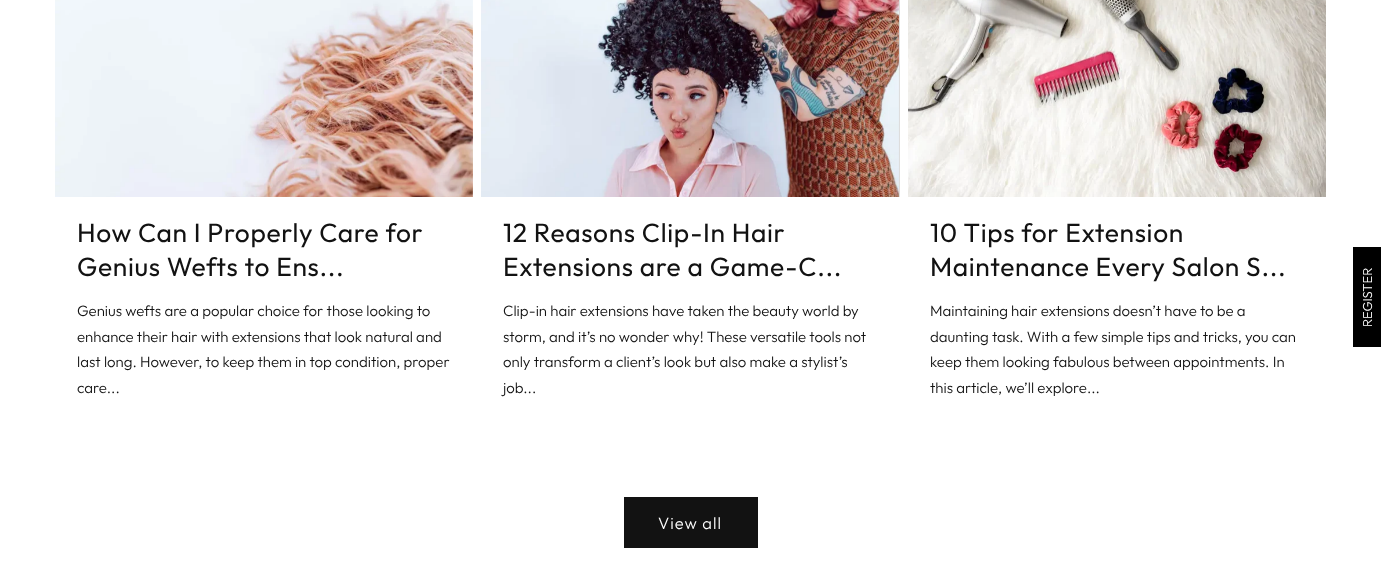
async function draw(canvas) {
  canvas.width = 1381;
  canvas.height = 566;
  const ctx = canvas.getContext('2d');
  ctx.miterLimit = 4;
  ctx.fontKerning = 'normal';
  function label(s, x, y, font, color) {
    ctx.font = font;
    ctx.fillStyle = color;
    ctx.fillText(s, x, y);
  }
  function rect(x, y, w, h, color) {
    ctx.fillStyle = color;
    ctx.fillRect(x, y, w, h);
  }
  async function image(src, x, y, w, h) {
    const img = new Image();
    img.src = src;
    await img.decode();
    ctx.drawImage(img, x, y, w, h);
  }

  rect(0, 0, 1381, 566, '#fff');
  await image('assets/img1.png', 55, 0, 418, 197);
  ctx.letterSpacing = '0.65px';
  label('How Can I Properly Care for', 77, 242, '26.4px Outfit', '#121212');
  label('Genius Wefts to Ens...', 77, 276, '26.4px Outfit', '#121212');
  ctx.letterSpacing = '0px';
  label('Genius wefts are a popular choice for those looking to', 77, 316, '300 15px Outfit', '#121212');
  label('enhance their hair with extensions that look natural and', 77, 342, '300 15px Outfit', '#121212');
  label('last long. However, to keep them in top condition, proper', 77, 367, '300 15px Outfit', '#121212');
  label('care...', 77, 393, '300 15px Outfit', '#121212');
  rect(898, 0, 2, 197, '#ddd');
  await image('assets/img2.png', 481, 0, 418, 197);
  ctx.letterSpacing = '0.65px';
  label('12 Reasons Clip-In Hair', 503, 242, '26.4px Outfit', '#121212');
  label('Extensions are a Game-C...', 503, 276, '26.4px Outfit', '#121212');
  ctx.letterSpacing = '0px';
  label('Clip-in hair extensions have taken the beauty world by', 503, 316, '300 15px Outfit', '#121212');
  label('storm, and it’s no wonder why! These versatile tools not', 503, 342, '300 15px Outfit', '#121212');
  label('only transform a client’s look but also make a stylist’s', 503, 367, '300 15px Outfit', '#121212');
  label('job...', 503, 393, '300 15px Outfit', '#121212');
  await image('assets/img3.png', 908, 0, 418, 197);
  ctx.letterSpacing = '0.65px';
  label('10 Tips for Extension', 930, 242, '26.4px Outfit', '#121212');
  label('Maintenance Every Salon S...', 930, 276, '26.4px Outfit', '#121212');
  ctx.letterSpacing = '0px';
  label('Maintaining hair extensions doesn’t have to be a', 930, 316, '300 15px Outfit', '#121212');
  label('daunting task. With a few simple tips and tricks, you can', 930, 342, '300 15px Outfit', '#121212');
  label('keep them looking fabulous between appointments. In', 930, 367, '300 15px Outfit', '#121212');
  label('this article, we’ll explore...', 930, 393, '300 15px Outfit', '#121212');
  rect(624, 497, 134, 51, '#121212');
  ctx.letterSpacing = '1px';
  label('View all', 658, 529, '300 16.5px Outfit', '#fff');
  rect(1353, 247, 28, 100, '#000');
  ctx.letterSpacing = '0px';
  ctx.font = '300 13px Outfit';
  ctx.fillStyle = '#fff';
  ctx.save();
  ctx.translate(1372, 327);
  ctx.rotate(-90 * Math.PI / 180);
  ctx.fillText('REGISTER', 0, 0);
  ctx.restore();
}

draw(document.querySelector('canvas'));
